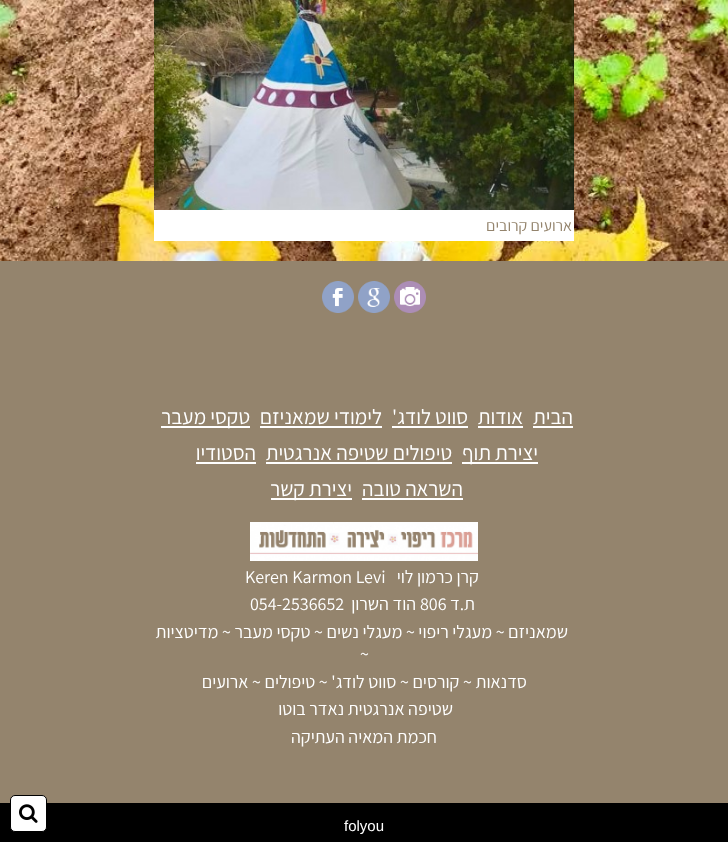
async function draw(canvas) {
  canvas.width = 728;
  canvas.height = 842;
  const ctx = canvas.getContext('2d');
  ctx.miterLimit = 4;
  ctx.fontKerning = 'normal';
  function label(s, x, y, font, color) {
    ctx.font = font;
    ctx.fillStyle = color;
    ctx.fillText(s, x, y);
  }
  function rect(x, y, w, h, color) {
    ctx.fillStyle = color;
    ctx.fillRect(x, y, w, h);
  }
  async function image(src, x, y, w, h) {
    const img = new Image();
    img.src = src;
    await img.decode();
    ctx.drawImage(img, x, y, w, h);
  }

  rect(0, 0, 728, 842, '#fff');
  await image('assets/img1.png', 0, 0, 728, 261);
  await image('assets/img2.png', 154, 0, 420, 210);
  rect(154, 210, 420, 31, '#fff');
  ctx.direction = 'rtl';
  label('ארועים קרובים', 572, 231, '16px Assistant', '#94846d');
  rect(0, 261, 728, 542, '#94846d');
  await image('assets/img3.png', 394, 281, 32, 32);
  await image('assets/img4.png', 358, 281, 32, 32);
  await image('assets/img5.png', 322, 281, 32, 32);
  label('הבית', 573, 424, '21px Assistant', '#fff');
  rect(533, 426, 40, 2, '#fff');
  label('אודות', 523, 424, '21px Assistant', '#fff');
  rect(478, 426, 45, 2, '#fff');
  label('סווט לודג\'', 468, 424, '21px Assistant', '#fff');
  rect(392, 426, 76, 2, '#fff');
  label('לימודי שמאניזם', 382, 424, '21px Assistant', '#fff');
  rect(260, 426, 122, 2, '#fff');
  rect(161, 426, 89, 2, '#fff');
  label('טקסי מעבר', 250, 424, '21px Assistant', '#fff');
  rect(462, 462, 76, 2, '#fff');
  label('יצירת תוף', 538, 460, '21px Assistant', '#fff');
  label('טיפולים שטיפה אנרגטית', 452, 460, '21px Assistant', '#fff');
  rect(266, 462, 186, 2, '#fff');
  label('הסטודיו', 256, 460, '21px Assistant', '#fff');
  rect(196, 462, 60, 2, '#fff');
  label('השראה טובה', 463, 496, '21px Assistant', '#fff');
  rect(362, 498, 101, 2, '#fff');
  rect(271, 498, 81, 2, '#fff');
  label('יצירת קשר', 352, 496, '21px Assistant', '#fff');
  await image('assets/img6.png', 250, 522, 228, 39);
  label('קרן כרמון לוי', 479, 583, '18px Assistant', '#fff');
  ctx.direction = 'ltr';
  label('Keren Karmon Levi', 245, 583, '18px Assistant', '#fff');
  ctx.direction = 'rtl';
  label('ת.ד', 475, 610, '18px Assistant', '#fff');
  ctx.direction = 'ltr';
  label('806', 420, 610, '18px Assistant', '#fff');
  ctx.direction = 'rtl';
  label('הוד השרון', 416, 610, '18px Assistant', '#fff');
  ctx.direction = 'ltr';
  label('054-2536652', 250, 610, '18px Assistant', '#fff');
  ctx.direction = 'rtl';
  label('שמאניזם ~ מעגלי ריפוי ~ מעגלי נשים ~ טקסי מעבר ~ מדיטציות', 568, 638, '18px Assistant', '#fff');
  ctx.direction = 'ltr';
  label('~', 360, 660, '18px Assistant', '#fff');
  ctx.direction = 'rtl';
  label('סדנאות ~ קורסים ~ סווט לודג\' ~ טיפולים ~ ארועים', 527, 688, '18px Assistant', '#fff');
  label('שטיפה אנרגטית נאדר בוטו', 453, 715, '18px Assistant', '#fff');
  label('חכמת המאיה העתיקה', 437, 743, '18px Assistant', '#fff');
  rect(0, 803, 728, 39, '#000');
  ctx.direction = 'ltr';
  label('folyou', 344, 831, '15px Liberation Sans', '#fff');
  ctx.beginPath();
  ctx.roundRect(10.5, 795.5, 36, 36, 4.5);
  ctx.fill();
  ctx.strokeStyle = '#000';
  ctx.stroke();
  await image('assets/img7.png', 19, 804, 19, 19);
}

draw(document.querySelector('canvas'));
